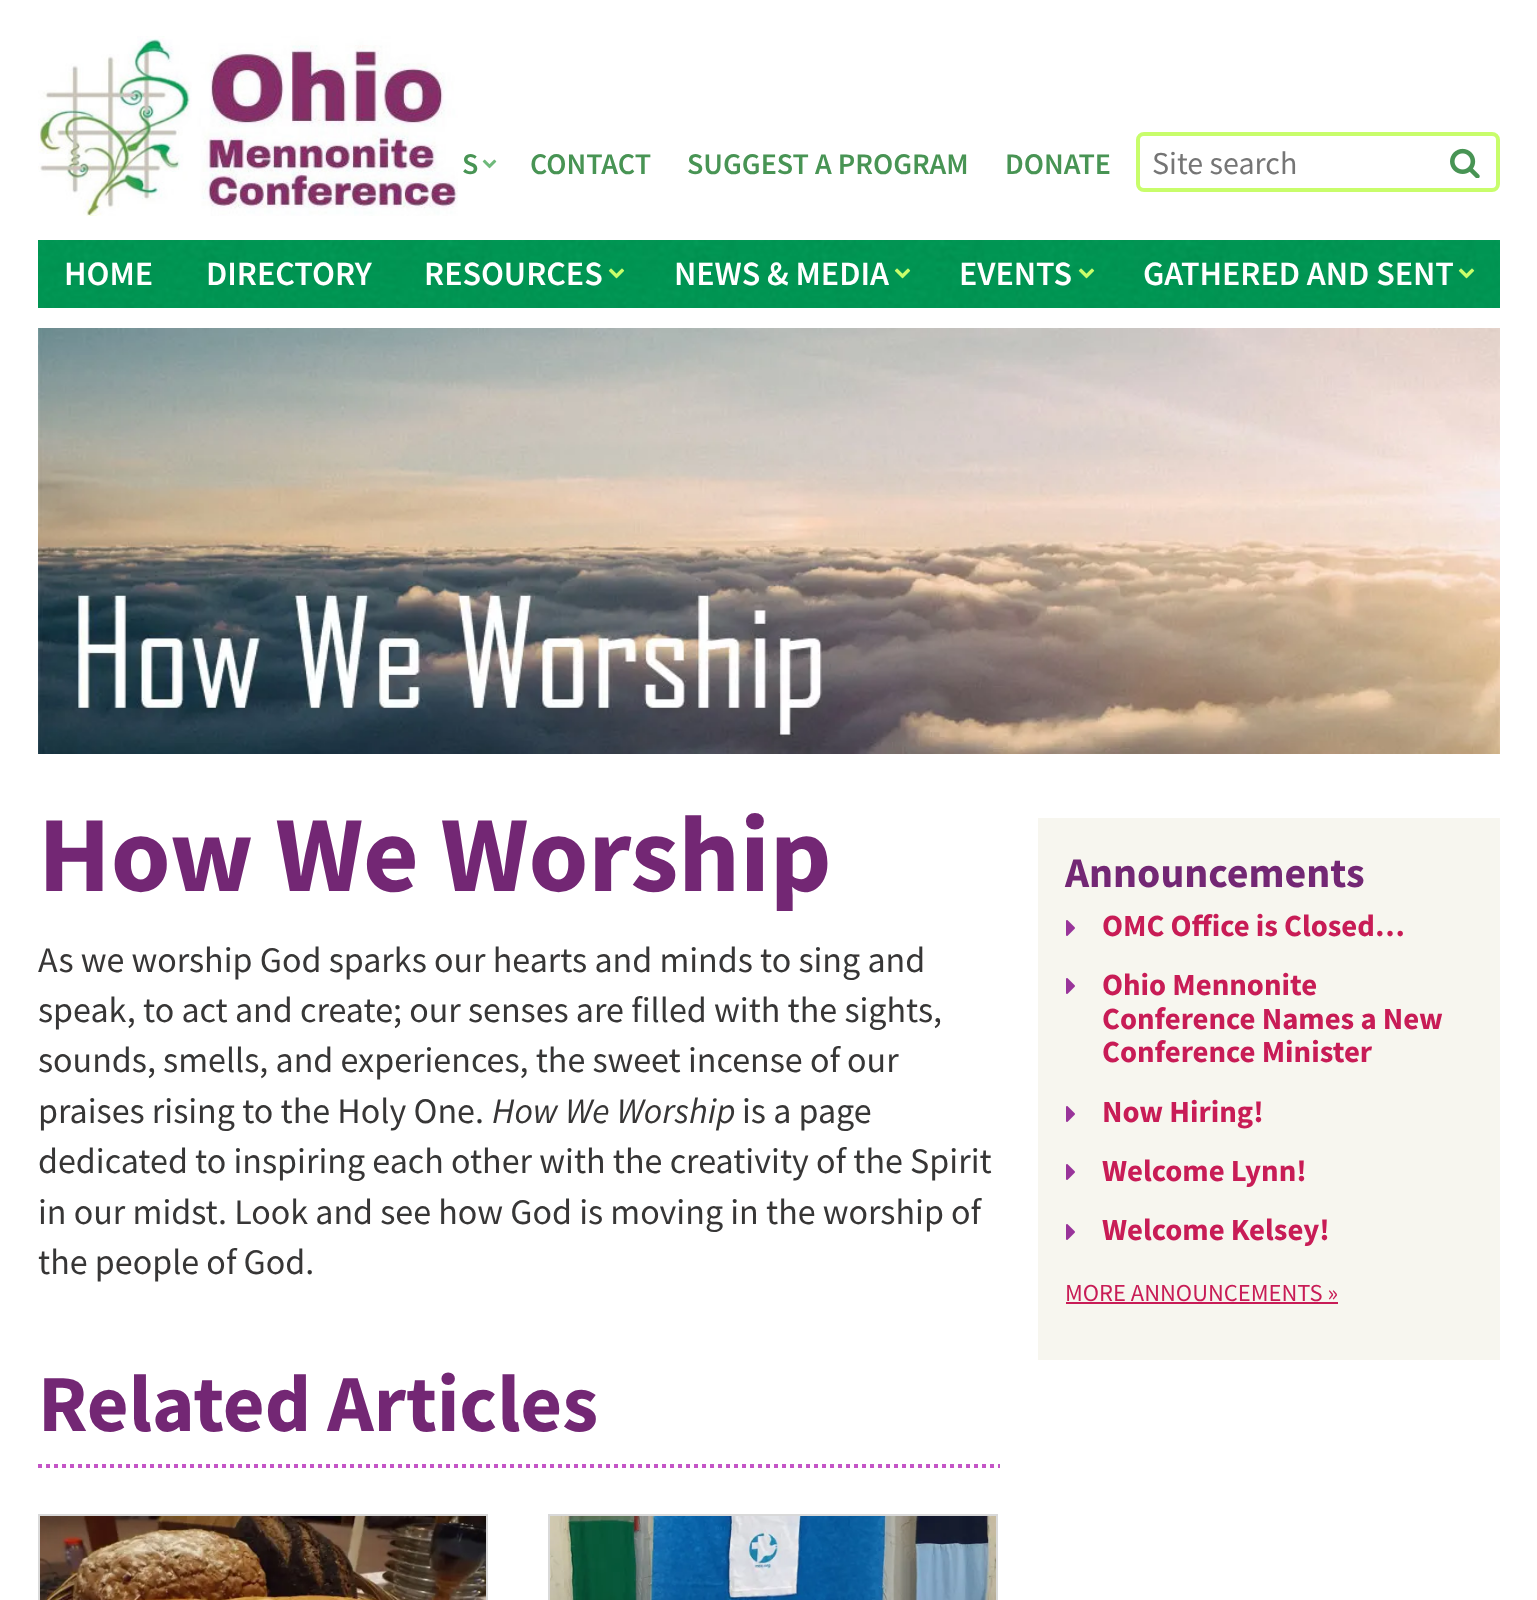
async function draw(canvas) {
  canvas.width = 1537;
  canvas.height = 1600;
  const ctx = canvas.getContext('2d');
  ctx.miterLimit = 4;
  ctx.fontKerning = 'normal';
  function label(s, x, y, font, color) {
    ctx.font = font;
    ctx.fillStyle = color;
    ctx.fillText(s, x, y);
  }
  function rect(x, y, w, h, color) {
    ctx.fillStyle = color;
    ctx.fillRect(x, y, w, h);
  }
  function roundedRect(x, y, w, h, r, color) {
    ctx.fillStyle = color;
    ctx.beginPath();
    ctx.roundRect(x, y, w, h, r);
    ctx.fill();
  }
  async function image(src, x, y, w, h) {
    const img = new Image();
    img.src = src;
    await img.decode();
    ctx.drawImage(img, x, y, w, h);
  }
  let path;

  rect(0, 0, 1537, 1600, '#fff');
  await image('assets/img1.png', 38, 36, 420, 180);
  label('S', 462, 174, '600 30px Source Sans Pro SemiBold', '#489454');
  await image('assets/img2.png', 482, 159, 15, 10);
  label('CONTACT', 530, 174, '600 30px Source Sans Pro SemiBold', '#489454');
  label('SUGGEST A PROGRAM', 687, 174, '600 30px Source Sans Pro SemiBold', '#489454');
  label('DONATE', 1005, 174, '600 30px Source Sans Pro SemiBold', '#489454');
  ctx.beginPath();
  ctx.roundRect(1138, 134, 360, 56, 6);
  ctx.strokeStyle = '#c8fd6b';
  ctx.lineWidth = 4;
  ctx.stroke();
  roundedRect(1140, 136, 288, 52, 6, '#fff');
  label('Site search', 1152, 174, '32px Source Sans Pro', '#757575');
  await image('assets/img3.png', 1450, 148, 30, 30);
  await image('assets/img4.png', 38, 240, 1462, 68);
  label('HOME', 64, 285, '600 34px Source Sans Pro SemiBold', '#fff');
  label('DIRECTORY', 206, 285, '600 34px Source Sans Pro SemiBold', '#fff');
  label('RESOURCES', 424, 285, '600 34px Source Sans Pro SemiBold', '#fff');
  await image('assets/img5.png', 608, 268, 17, 11);
  label('NEWS & MEDIA', 674, 285, '600 34px Source Sans Pro SemiBold', '#fff');
  await image('assets/img6.png', 894, 268, 17, 11);
  label('EVENTS', 959, 285, '600 34px Source Sans Pro SemiBold', '#fff');
  await image('assets/img7.png', 1078, 268, 17, 11);
  label('GATHERED AND SENT', 1143, 285, '600 34px Source Sans Pro SemiBold', '#fff');
  await image('assets/img8.png', 1458, 268, 17, 11);
  await image('assets/img9.png', 38, 328, 1462, 426);
  label('How We Worship', 38, 891, 'bold 108px Source Sans Pro', '#732774');
  label('As we worship God sparks our hearts and minds to sing and', 38, 972, '36px Source Sans Pro', '#373636');
  label('speak, to act and create; our senses are filled with the sights,', 38, 1022, '36px Source Sans Pro', '#373636');
  label('sounds, smells, and experiences, the sweet incense of our', 38, 1072, '36px Source Sans Pro', '#373636');
  label('praises rising to the Holy One.', 38, 1123, '36px Source Sans Pro', '#373636');
  label('How We Worship', 492, 1123, 'italic 36px Source Sans Pro', '#373636');
  label('is a page', 742, 1123, '36px Source Sans Pro', '#373636');
  label('dedicated to inspiring each other with the creativity of the Spirit', 38, 1173, '36px Source Sans Pro', '#373636');
  label('in our midst. Look and see how God is moving in the worship of', 38, 1224, '36px Source Sans Pro', '#373636');
  label('the people of God.', 38, 1274, '36px Source Sans Pro', '#373636');
  path = new Path2D('M38 1466H1000');
  ctx.strokeStyle = '#c455c6';
  ctx.setLineDash([4, 4]);
  ctx.stroke(path);
  label('Related Articles', 38, 1431, 'bold 81px Source Sans Pro', '#732774');
  ctx.strokeStyle = '#d9d9d9';
  ctx.lineWidth = 2;
  ctx.setLineDash([]);
  ctx.strokeRect(39, 1515, 448, 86);
  await image('assets/img10.png', 40, 1516, 446, 84);
  ctx.strokeRect(549, 1515, 448, 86);
  await image('assets/img11.png', 550, 1516, 446, 84);
  rect(1038, 818, 462, 542, '#f7f6ef');
  label('Announcements', 1065, 887, 'bold 42px Source Sans Pro', '#732774');
  await image('assets/img12.png', 1066, 920, 9, 16);
  label('OMC Office is Closed…', 1102, 936, 'bold 30.75px Source Sans Pro', '#c81c56');
  await image('assets/img12.png', 1066, 978, 9, 16);
  label('Ohio Mennonite', 1102, 995, 'bold 30.75px Source Sans Pro', '#c81c56');
  label('Conference Names a New', 1102, 1029, 'bold 30.75px Source Sans Pro', '#c81c56');
  label('Conference Minister', 1102, 1062, 'bold 30.75px Source Sans Pro', '#c81c56');
  await image('assets/img12.png', 1066, 1106, 9, 16);
  label('Now Hiring!', 1102, 1122, 'bold 30.75px Source Sans Pro', '#c81c56');
  await image('assets/img12.png', 1066, 1164, 9, 16);
  label('Welcome Lynn!', 1102, 1181, 'bold 30.75px Source Sans Pro', '#c81c56');
  await image('assets/img12.png', 1066, 1224, 9, 16);
  label('Welcome Kelsey!', 1102, 1240, 'bold 30.75px Source Sans Pro', '#c81c56');
  label('MORE ANNOUNCEMENTS »', 1065, 1301, '24.5px Source Sans Pro', '#c81c56');
  rect(1066, 1302, 272, 2, '#c81c56');
}

draw(document.querySelector('canvas'));
